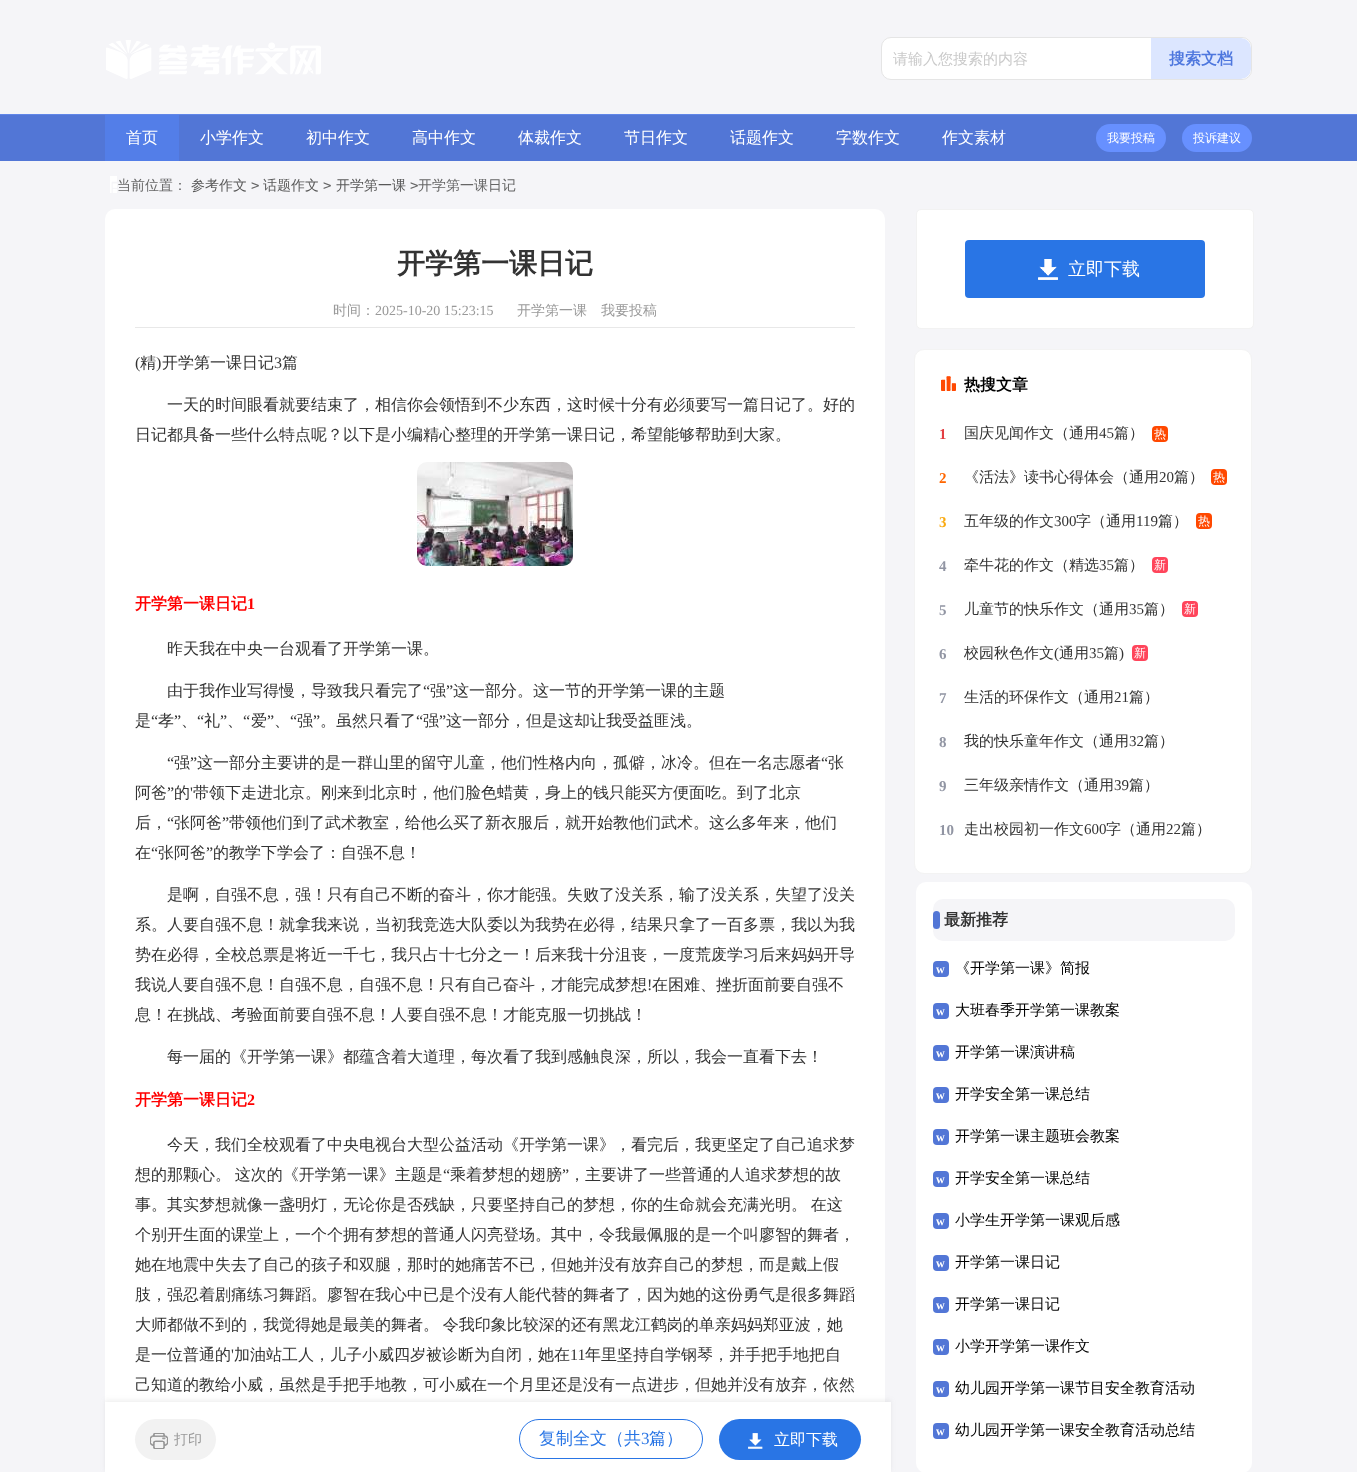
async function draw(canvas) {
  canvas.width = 1357;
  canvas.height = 1472;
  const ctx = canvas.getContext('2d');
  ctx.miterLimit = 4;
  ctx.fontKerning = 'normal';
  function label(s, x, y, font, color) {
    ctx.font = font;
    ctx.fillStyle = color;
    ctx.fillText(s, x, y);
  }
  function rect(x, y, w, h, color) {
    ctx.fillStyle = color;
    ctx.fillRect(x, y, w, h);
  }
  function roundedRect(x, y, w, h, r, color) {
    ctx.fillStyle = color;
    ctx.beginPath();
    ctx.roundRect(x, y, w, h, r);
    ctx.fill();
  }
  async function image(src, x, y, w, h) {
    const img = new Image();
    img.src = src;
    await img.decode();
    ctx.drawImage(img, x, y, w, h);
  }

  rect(0, 0, 1357, 1472, '#f5f5f8');
  await image('assets/img1.png', 106, 40, 215, 39);
  ctx.fillStyle = '#fff';
  ctx.beginPath();
  ctx.roundRect(881.5, 37.5, 370, 42, 9.5);
  ctx.fill();
  ctx.strokeStyle = '#e5e5e5';
  ctx.stroke();
  label('请输入您搜索的内容', 893, 64, '500 15px WenQuanYi Zen Hei', '#cacaca');
  ctx.save();
  ctx.beginPath();
  ctx.roundRect(882, 38, 369, 41, 9);
  ctx.clip();
  ctx.fillStyle = '#dce6ff';
  ctx.beginPath();
  ctx.roundRect(1151, 38, 100, 41, [0, 10, 10, 0]);
  ctx.fill();
  ctx.restore();
  label('搜索文档', 1169, 64, 'bold 16px WenQuanYi Zen Hei', '#4e77de');
  rect(0, 115, 1357, 46, '#5276d6');
  rect(0, 114, 1357, 1, '#6186e8');
  rect(105, 115, 74, 46, '#537ee8');
  label('首页', 126, 143, '500 16px WenQuanYi Zen Hei', '#fff');
  label('小学作文', 200, 143, '500 16px WenQuanYi Zen Hei', '#fff');
  label('初中作文', 306, 143, '500 16px WenQuanYi Zen Hei', '#fff');
  label('高中作文', 412, 143, '500 16px WenQuanYi Zen Hei', '#fff');
  label('体裁作文', 518, 143, '500 16px WenQuanYi Zen Hei', '#fff');
  label('节日作文', 624, 143, '500 16px WenQuanYi Zen Hei', '#fff');
  label('话题作文', 730, 143, '500 16px WenQuanYi Zen Hei', '#fff');
  label('字数作文', 836, 143, '500 16px WenQuanYi Zen Hei', '#fff');
  label('作文素材', 942, 143, '500 16px WenQuanYi Zen Hei', '#fff');
  roundedRect(1096, 124, 70, 28, 14, '#6790ff');
  label('我要投稿', 1107, 142, '500 12px WenQuanYi Zen Hei', '#fff');
  roundedRect(1182, 124, 70, 28, 14, '#6790ff');
  label('投诉建议', 1193, 142, '500 12px WenQuanYi Zen Hei', '#fff');
  await image('assets/img2.png', 110, 176, 7, 17);
  label('当前位置：', 117, 190, '500 14px WenQuanYi Zen Hei', '#666');
  label('参考作文', 191, 190, '500 14px WenQuanYi Zen Hei', '#585858');
  label('>', 251, 190, '14px DejaVu Sans Mono', '#666');
  label('话题作文', 263, 190, '500 14px WenQuanYi Zen Hei', '#585858');
  label('>', 323, 190, '14px DejaVu Sans Mono', '#666');
  label('开学第一课', 336, 190, '500 14px WenQuanYi Zen Hei', '#585858');
  label('>', 410, 190, '14px DejaVu Sans Mono', '#666');
  label('开学第一课日记', 418, 190, '500 14px WenQuanYi Zen Hei', '#666');
  roundedRect(105, 209, 780, 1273, 10, '#fff');
  label('开学第一课日记', 397, 273, 'bold 28px WenQuanYi Zen Hei', '#333');
  rect(135, 327, 720, 1, '#e8e8e8');
  label('时间：', 333, 315, '500 14px WenQuanYi Zen Hei', '#999');
  label('2025-10-20 15:23:15', 375, 315, '14px Liberation Serif', '#999');
  label('开学第一课', 517, 315, '500 14px WenQuanYi Zen Hei', '#999');
  label('我要投稿', 601, 315, '500 14px WenQuanYi Zen Hei', '#999');
  label('(', 135, 368, '16px Liberation Serif', '#333');
  label('精', 140, 368, '500 16px WenQuanYi Zen Hei', '#333');
  label(')', 156, 368, '16px Liberation Serif', '#333');
  label('开学第一课日记', 162, 368, '500 16px WenQuanYi Zen Hei', '#333');
  label('3', 274, 368, '16px Liberation Serif', '#333');
  label('篇', 282, 368, '500 16px WenQuanYi Zen Hei', '#333');
  label('一天的时间眼看就要结束了，相信你会领悟到不少东西，这时候十分有必须要写一篇日记了。好的', 167, 410, '500 16px WenQuanYi Zen Hei', '#333');
  label('日记都具备一些什么特点呢？以下是小编精心整理的开学第一课日记，希望能够帮助到大家。', 135, 440, '500 16px WenQuanYi Zen Hei', '#333');
  await image('assets/img3.png', 417, 462, 156, 104);
  label('开学第一课日记', 135, 609, 'bold 16px WenQuanYi Zen Hei', '#f00');
  label('1', 247, 609, 'bold 16px Liberation Serif', '#f00');
  label('昨天我在中央一台观看了开学第一课。', 167, 654, '500 16px WenQuanYi Zen Hei', '#333');
  label('由于我作业写得慢，导致我只看完了', 167, 696, '500 16px WenQuanYi Zen Hei', '#333');
  label('“', 423, 696, '16px Liberation Serif', '#333');
  label('强', 430, 696, '500 16px WenQuanYi Zen Hei', '#333');
  label('”', 446, 696, '16px Liberation Serif', '#333');
  label('这一部分。这一节的开学第一课的主题', 453, 696, '500 16px WenQuanYi Zen Hei', '#333');
  label('是', 135, 726, '500 16px WenQuanYi Zen Hei', '#333');
  label('“', 151, 726, '16px Liberation Serif', '#333');
  label('孝', 158, 726, '500 16px WenQuanYi Zen Hei', '#333');
  label('”', 174, 726, '16px Liberation Serif', '#333');
  label('“', 197, 726, '16px Liberation Serif', '#333');
  label('礼', 204, 726, '500 16px WenQuanYi Zen Hei', '#333');
  label('”', 220, 726, '16px Liberation Serif', '#333');
  label('“', 243, 726, '16px Liberation Serif', '#333');
  label('爱', 251, 726, '500 16px WenQuanYi Zen Hei', '#333');
  label('”', 267, 726, '16px Liberation Serif', '#333');
  label('“', 290, 726, '16px Liberation Serif', '#333');
  label('强', 297, 726, '500 16px WenQuanYi Zen Hei', '#333');
  label('”', 313, 726, '16px Liberation Serif', '#333');
  label('。虽然只看了', 320, 726, '500 16px WenQuanYi Zen Hei', '#333');
  label('“', 416, 726, '16px Liberation Serif', '#333');
  label('强', 423, 726, '500 16px WenQuanYi Zen Hei', '#333');
  label('”', 439, 726, '16px Liberation Serif', '#333');
  label('这一部分，但是这却让我受益匪浅。', 446, 726, '500 16px WenQuanYi Zen Hei', '#333');
  label('、', 181, 726, '500 16px WenQuanYi Zen Hei', '#333');
  label('、', 227, 726, '500 16px WenQuanYi Zen Hei', '#333');
  label('、', 274, 726, '500 16px WenQuanYi Zen Hei', '#333');
  label('“', 167, 768, '16px Liberation Serif', '#333');
  label('强', 174, 768, '500 16px WenQuanYi Zen Hei', '#333');
  label('”', 190, 768, '16px Liberation Serif', '#333');
  label('这一部分主要讲的是一群山里的留守儿童，他们性格内向，孤僻，冰冷。但在一名志愿者', 197, 768, '500 16px WenQuanYi Zen Hei', '#333');
  label('“', 821, 768, '16px Liberation Serif', '#333');
  label('张', 828, 768, '500 16px WenQuanYi Zen Hei', '#333');
  label('阿爸', 135, 798, '500 16px WenQuanYi Zen Hei', '#333');
  label('”', 167, 798, '16px Liberation Serif', '#333');
  label('的', 174, 798, '500 16px WenQuanYi Zen Hei', '#333');
  label('\'', 190, 798, '16px Liberation Serif', '#333');
  label('带领下走进北京。刚来到北京时，他们脸色蜡黄，身上的钱只能买方便面吃。到了北京', 193, 798, '500 16px WenQuanYi Zen Hei', '#333');
  label('后，', 135, 828, '500 16px WenQuanYi Zen Hei', '#333');
  label('“', 167, 828, '16px Liberation Serif', '#333');
  label('张阿爸', 174, 828, '500 16px WenQuanYi Zen Hei', '#333');
  label('”', 222, 828, '16px Liberation Serif', '#333');
  label('带领他们到了武术教室，给他么买了新衣服后，就开始教他们武术。这么多年来，他们', 229, 828, '500 16px WenQuanYi Zen Hei', '#333');
  label('在', 135, 858, '500 16px WenQuanYi Zen Hei', '#333');
  label('“', 151, 858, '16px Liberation Serif', '#333');
  label('张阿爸', 158, 858, '500 16px WenQuanYi Zen Hei', '#333');
  label('”', 206, 858, '16px Liberation Serif', '#333');
  label('的教学下学会了：自强不息！', 213, 858, '500 16px WenQuanYi Zen Hei', '#333');
  label('是啊，自强不息，强！只有自己不断的奋斗，你才能强。失败了没关系，输了没关系，失望了没关', 167, 900, '500 16px WenQuanYi Zen Hei', '#333');
  label('系。人要自强不息！就拿我来说，当初我竞选大队委以为我势在必得，结果只拿了一百多票，我以为我', 135, 930, '500 16px WenQuanYi Zen Hei', '#333');
  label('势在必得，全校总票是将近一千七，我只占十七分之一！后来我十分沮丧，一度荒废学习后来妈妈开导', 135, 960, '500 16px WenQuanYi Zen Hei', '#333');
  label('我说人要自强不息！自强不息，自强不息！只有自己奋斗，才能完成梦想', 135, 990, '500 16px WenQuanYi Zen Hei', '#333');
  label('!', 647, 990, '16px Liberation Serif', '#333');
  label('在困难、挫折面前要自强不', 652, 990, '500 16px WenQuanYi Zen Hei', '#333');
  label('息！在挑战、考验面前要自强不息！人要自强不息！才能克服一切挑战！', 135, 1020, '500 16px WenQuanYi Zen Hei', '#333');
  label('每一届的《开学第一课》都蕴含着大道理，每次看了我到感触良深，所以，我会一直看下去！', 167, 1062, '500 16px WenQuanYi Zen Hei', '#333');
  label('开学第一课日记', 135, 1105, 'bold 16px WenQuanYi Zen Hei', '#f00');
  label('2', 247, 1105, 'bold 16px Liberation Serif', '#f00');
  label('今天，我们全校观看了中央电视台大型公益活动《开学第一课》，看完后，我更坚定了自己追求梦', 167, 1150, '500 16px WenQuanYi Zen Hei', '#333');
  ctx.wordSpacing = '-1px';
  label('想的那颗心。 这次的《开学第一课》主题是', 135, 1180, '500 16px WenQuanYi Zen Hei', '#333');
  ctx.wordSpacing = '0px';
  label('“', 443, 1180, '16px Liberation Serif', '#333');
  label('乘着梦想的翅膀', 450, 1180, '500 16px WenQuanYi Zen Hei', '#333');
  label('”', 562, 1180, '16px Liberation Serif', '#333');
  label('，主要讲了一些普通的人追求梦想的故', 569, 1180, '500 16px WenQuanYi Zen Hei', '#333');
  ctx.wordSpacing = '-1px';
  label('事。其实梦想就像一盏明灯，无论你是否残缺，只要坚持自己的梦想，你的生命就会充满光明。 在这', 135, 1210, '500 16px WenQuanYi Zen Hei', '#333');
  ctx.wordSpacing = '0px';
  label('个别开生面的课堂上，一个个拥有梦想的普通人闪亮登场。其中，令我最佩服的是一个叫廖智的舞者，', 135, 1240, '500 16px WenQuanYi Zen Hei', '#333');
  label('她在地震中失去了自己的孩子和双腿，那时的她痛苦不已，但她并没有放弃自己的梦想，而是戴上假', 135, 1270, '500 16px WenQuanYi Zen Hei', '#333');
  label('肢，强忍着剧痛练习舞蹈。廖智在我心中已是个没有人能代替的舞者了，因为她的这份勇气是很多舞蹈', 135, 1300, '500 16px WenQuanYi Zen Hei', '#333');
  ctx.wordSpacing = '-1px';
  label('大师都做不到的，我觉得她是最美的舞者。 令我印象比较深的还有黑龙江鹤岗的单亲妈妈郑亚波，她', 135, 1330, '500 16px WenQuanYi Zen Hei', '#333');
  ctx.wordSpacing = '0px';
  label('是一位普通的', 135, 1360, '500 16px WenQuanYi Zen Hei', '#333');
  label('\'', 231, 1360, '16px Liberation Serif', '#333');
  label('加油站工人，儿子小威四岁被诊断为自闭，她在', 234, 1360, '500 16px WenQuanYi Zen Hei', '#333');
  label('11', 570, 1360, '16px Liberation Serif', '#333');
  label('年里坚持自学钢琴，并手把手地把自', 585, 1360, '500 16px WenQuanYi Zen Hei', '#333');
  label('己知道的教给小威，虽然是手把手地教，可小威在一个月里还是没有一点进步，但她并没有放弃，依然', 135, 1390, '500 16px WenQuanYi Zen Hei', '#333');
  ctx.fillStyle = '#6666661a';
  ctx.filter = 'blur(2.5px)';
  ctx.beginPath();
  ctx.rect(105, 1400, 786, 71);
  ctx.fill();
  ctx.filter = 'none';
  rect(105, 1402, 786, 70, '#fff');
  roundedRect(135, 1419, 81, 41, 20.5, '#f2f2f2');
  await image('assets/img4.png', 150, 1433, 18, 16);
  label('打印', 174, 1444, '500 14px WenQuanYi Zen Hei', '#999');
  ctx.beginPath();
  ctx.roundRect(519.5, 1419.5, 183, 39, 19.5);
  ctx.strokeStyle = '#2975e5';
  ctx.stroke();
  label('复制全文（共', 539, 1444, '500 17px WenQuanYi Zen Hei', '#2975e5');
  label('3', 641, 1444, '17px Liberation Serif', '#2975e5');
  label('篇）', 649, 1444, '500 17px WenQuanYi Zen Hei', '#2975e5');
  roundedRect(719, 1419, 142, 41, 20.5, '#2975e5');
  await image('assets/img5.png', 748, 1433, 15, 16);
  label('立即下载', 774, 1445, '500 16px WenQuanYi Zen Hei', '#fff');
  ctx.beginPath();
  ctx.roundRect(916.5, 209.5, 337, 119, 4.5);
  ctx.fill();
  ctx.strokeStyle = '#f2f2f2';
  ctx.stroke();
  roundedRect(965, 240, 240, 58, 4, '#2975e5');
  await image('assets/img6.png', 1038, 259, 20, 21);
  label('立即下载', 1068, 275, '500 18px WenQuanYi Zen Hei', '#fff');
  ctx.beginPath();
  ctx.roundRect(914.5, 349.5, 337, 524, 9.5);
  ctx.fill();
  ctx.strokeStyle = '#f3f3f3';
  ctx.stroke();
  await image('assets/img7.png', 941, 376, 15, 15);
  label('热搜文章', 964, 390, 'bold 16px WenQuanYi Zen Hei', '#000');
  label('1', 939, 439, 'bold 15px Liberation Serif', '#e33e42');
  label('国庆见闻作文（通用', 964, 438, '500 15px WenQuanYi Zen Hei', '#333');
  label('45', 1099, 438, '15px Liberation Serif', '#333');
  label('篇）', 1114, 438, '500 15px WenQuanYi Zen Hei', '#333');
  roundedRect(1152, 426, 16, 16, 4, '#ff4800');
  label('热', 1154, 438, '500 12px WenQuanYi Zen Hei', '#fff');
  label('2', 939, 483, 'bold 15px Liberation Serif', '#f60');
  label('《活法》读书心得体会（通用', 964, 482, '500 15px WenQuanYi Zen Hei', '#333');
  label('20', 1159, 482, '15px Liberation Serif', '#333');
  label('篇）', 1174, 482, '500 15px WenQuanYi Zen Hei', '#333');
  roundedRect(1211, 469, 16, 16, 4, '#ff4800');
  label('热', 1213, 481, '500 12px WenQuanYi Zen Hei', '#fff');
  label('3', 939, 527, 'bold 15px Liberation Serif', '#faa90e');
  label('五年级的作文', 964, 526, '500 15px WenQuanYi Zen Hei', '#333');
  label('300', 1054, 526, '15px Liberation Serif', '#333');
  label('字（通用', 1076, 526, '500 15px WenQuanYi Zen Hei', '#333');
  label('119', 1136, 526, '15px Liberation Serif', '#333');
  label('篇）', 1158, 526, '500 15px WenQuanYi Zen Hei', '#333');
  roundedRect(1196, 513, 16, 16, 4, '#ff4800');
  label('热', 1198, 525, '500 12px WenQuanYi Zen Hei', '#fff');
  label('4', 939, 571, 'bold 15px Liberation Serif', '#9195a3');
  label('牵牛花的作文（精选', 964, 570, '500 15px WenQuanYi Zen Hei', '#333');
  label('35', 1099, 570, '15px Liberation Serif', '#333');
  label('篇）', 1114, 570, '500 15px WenQuanYi Zen Hei', '#333');
  roundedRect(1152, 557, 16, 16, 4, '#ff455b');
  label('新', 1154, 569, '500 12px WenQuanYi Zen Hei', '#fff');
  label('5', 939, 615, 'bold 15px Liberation Serif', '#9195a3');
  label('儿童节的快乐作文（通用', 964, 614, '500 15px WenQuanYi Zen Hei', '#333');
  label('35', 1129, 614, '15px Liberation Serif', '#333');
  label('篇）', 1144, 614, '500 15px WenQuanYi Zen Hei', '#333');
  roundedRect(1182, 601, 16, 16, 4, '#ff455b');
  label('新', 1184, 613, '500 12px WenQuanYi Zen Hei', '#fff');
  label('6', 939, 659, 'bold 15px Liberation Serif', '#9195a3');
  label('校园秋色作文', 964, 658, '500 15px WenQuanYi Zen Hei', '#333');
  label('(', 1054, 658, '15px Liberation Serif', '#333');
  label('通用', 1059, 658, '500 15px WenQuanYi Zen Hei', '#333');
  label('35', 1089, 658, '15px Liberation Serif', '#333');
  label('篇', 1104, 658, '500 15px WenQuanYi Zen Hei', '#333');
  label(')', 1119, 658, '15px Liberation Serif', '#333');
  roundedRect(1132, 645, 16, 16, 4, '#ff455b');
  label('新', 1134, 657, '500 12px WenQuanYi Zen Hei', '#fff');
  label('7', 939, 703, 'bold 15px Liberation Serif', '#9195a3');
  label('生活的环保作文（通用', 964, 702, '500 15px WenQuanYi Zen Hei', '#333');
  label('21', 1114, 702, '15px Liberation Serif', '#333');
  label('篇）', 1129, 702, '500 15px WenQuanYi Zen Hei', '#333');
  label('8', 939, 747, 'bold 15px Liberation Serif', '#9195a3');
  label('我的快乐童年作文（通用', 964, 746, '500 15px WenQuanYi Zen Hei', '#333');
  label('32', 1129, 746, '15px Liberation Serif', '#333');
  label('篇）', 1144, 746, '500 15px WenQuanYi Zen Hei', '#333');
  label('9', 939, 791, 'bold 15px Liberation Serif', '#9195a3');
  label('三年级亲情作文（通用', 964, 790, '500 15px WenQuanYi Zen Hei', '#333');
  label('39', 1114, 790, '15px Liberation Serif', '#333');
  label('篇）', 1129, 790, '500 15px WenQuanYi Zen Hei', '#333');
  label('10', 939, 835, 'bold 15px Liberation Serif', '#9195a3');
  label('走出校园初一作文', 964, 834, '500 15px WenQuanYi Zen Hei', '#333');
  label('600', 1084, 834, '15px Liberation Serif', '#333');
  label('字（通用', 1106, 834, '500 15px WenQuanYi Zen Hei', '#333');
  label('22', 1166, 834, '15px Liberation Serif', '#333');
  label('篇）', 1181, 834, '500 15px WenQuanYi Zen Hei', '#333');
  roundedRect(916, 882, 336, 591, 10, '#fff');
  roundedRect(933, 899, 302, 42, 10, '#f5f5f8');
  roundedRect(933, 911, 7, 18, 3.5, '#5276d6');
  label('最新推荐', 944, 925, 'bold 16px WenQuanYi Zen Hei', '#333');
  roundedRect(933, 961, 16, 16, 4, '#5276d6');
  label('w', 936, 973, 'bold 12px Liberation Serif', '#fff');
  label('《开学第一课》简报', 955, 973, '500 15px WenQuanYi Zen Hei', '#000');
  roundedRect(933, 1003, 16, 16, 4, '#5276d6');
  label('w', 936, 1015, 'bold 12px Liberation Serif', '#fff');
  label('大班春季开学第一课教案', 955, 1015, '500 15px WenQuanYi Zen Hei', '#000');
  roundedRect(933, 1045, 16, 16, 4, '#5276d6');
  label('w', 936, 1057, 'bold 12px Liberation Serif', '#fff');
  label('开学第一课演讲稿', 955, 1057, '500 15px WenQuanYi Zen Hei', '#000');
  roundedRect(933, 1087, 16, 16, 4, '#5276d6');
  label('w', 936, 1099, 'bold 12px Liberation Serif', '#fff');
  label('开学安全第一课总结', 955, 1099, '500 15px WenQuanYi Zen Hei', '#000');
  roundedRect(933, 1129, 16, 16, 4, '#5276d6');
  label('w', 936, 1141, 'bold 12px Liberation Serif', '#fff');
  label('开学第一课主题班会教案', 955, 1141, '500 15px WenQuanYi Zen Hei', '#000');
  roundedRect(933, 1171, 16, 16, 4, '#5276d6');
  label('w', 936, 1183, 'bold 12px Liberation Serif', '#fff');
  label('开学安全第一课总结', 955, 1183, '500 15px WenQuanYi Zen Hei', '#000');
  roundedRect(933, 1213, 16, 16, 4, '#5276d6');
  label('w', 936, 1225, 'bold 12px Liberation Serif', '#fff');
  label('小学生开学第一课观后感', 955, 1225, '500 15px WenQuanYi Zen Hei', '#000');
  roundedRect(933, 1255, 16, 16, 4, '#5276d6');
  label('w', 936, 1267, 'bold 12px Liberation Serif', '#fff');
  label('开学第一课日记', 955, 1267, '500 15px WenQuanYi Zen Hei', '#000');
  roundedRect(933, 1297, 16, 16, 4, '#5276d6');
  label('w', 936, 1309, 'bold 12px Liberation Serif', '#fff');
  label('开学第一课日记', 955, 1309, '500 15px WenQuanYi Zen Hei', '#000');
  roundedRect(933, 1339, 16, 16, 4, '#5276d6');
  label('w', 936, 1351, 'bold 12px Liberation Serif', '#fff');
  label('小学开学第一课作文', 955, 1351, '500 15px WenQuanYi Zen Hei', '#000');
  roundedRect(933, 1381, 16, 16, 4, '#5276d6');
  label('w', 936, 1393, 'bold 12px Liberation Serif', '#fff');
  label('幼儿园开学第一课节目安全教育活动', 955, 1393, '500 15px WenQuanYi Zen Hei', '#000');
  roundedRect(933, 1423, 16, 16, 4, '#5276d6');
  label('w', 936, 1435, 'bold 12px Liberation Serif', '#fff');
  label('幼儿园开学第一课安全教育活动总结', 955, 1435, '500 15px WenQuanYi Zen Hei', '#000');
}

draw(document.querySelector('canvas'));
